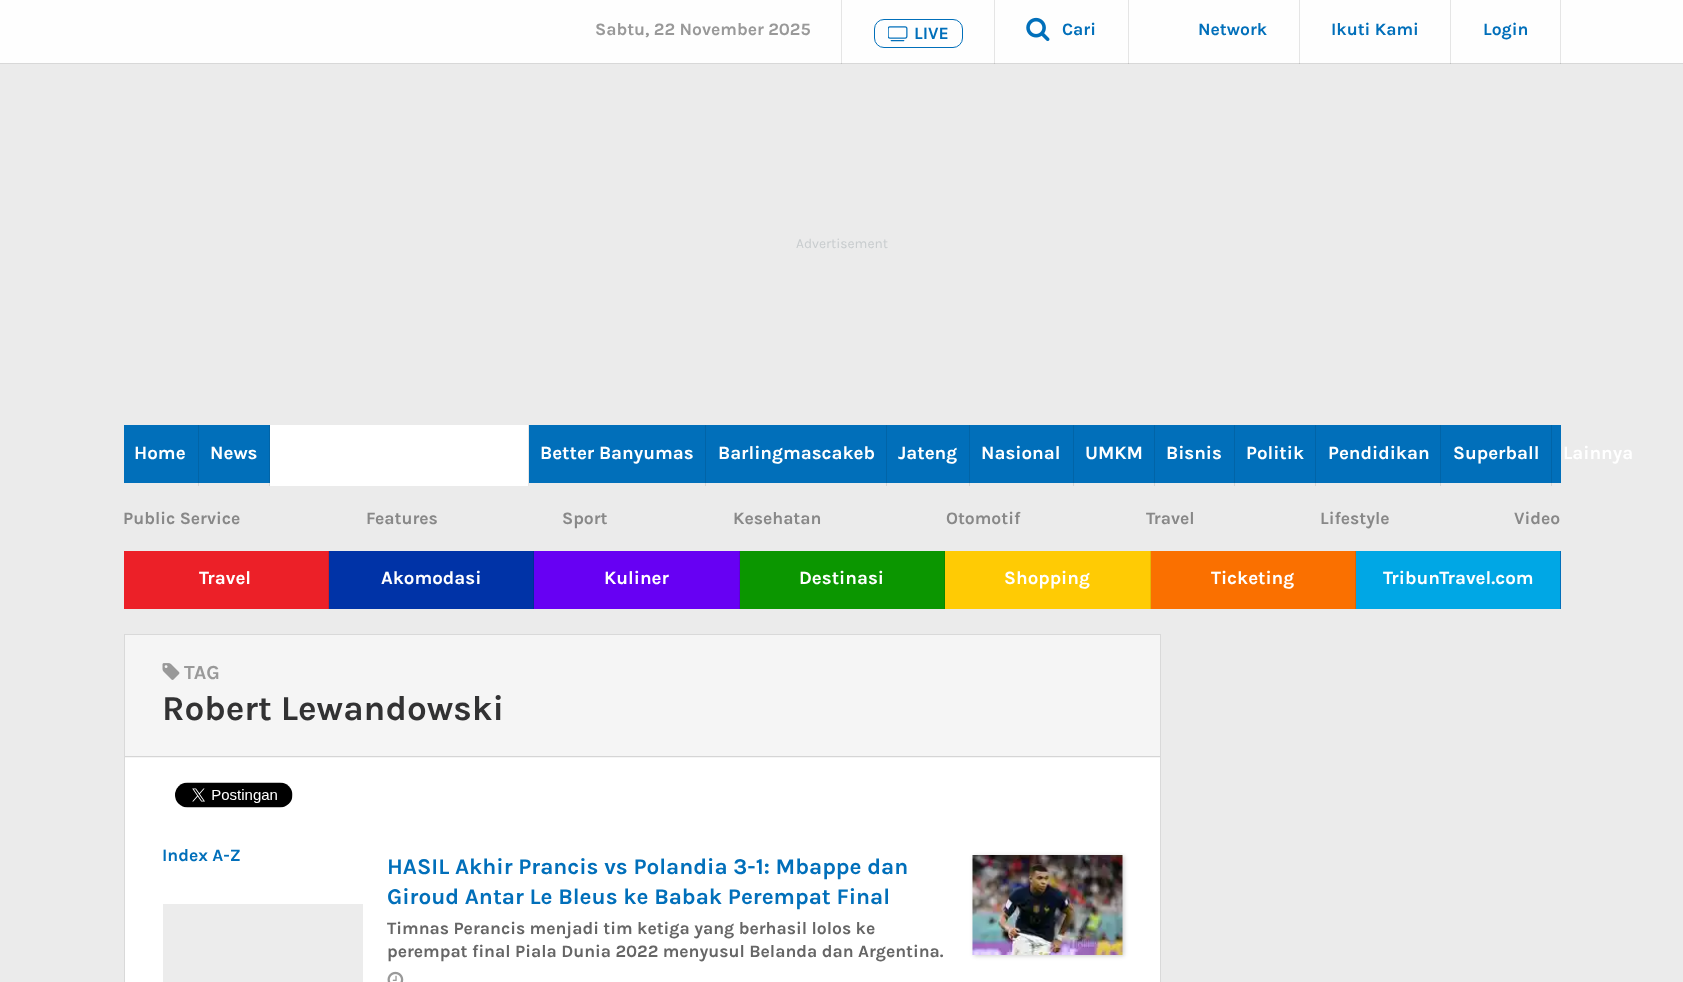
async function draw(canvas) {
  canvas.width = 1683;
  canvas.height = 982;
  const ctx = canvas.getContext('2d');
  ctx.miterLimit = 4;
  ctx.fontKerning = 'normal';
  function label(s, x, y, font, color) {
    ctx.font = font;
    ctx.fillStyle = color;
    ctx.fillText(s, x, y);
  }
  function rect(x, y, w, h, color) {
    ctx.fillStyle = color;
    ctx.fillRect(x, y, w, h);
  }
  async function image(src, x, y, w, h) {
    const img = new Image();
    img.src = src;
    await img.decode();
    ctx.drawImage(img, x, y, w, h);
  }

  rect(0, 0, 1683, 982, '#ebebeb');
  rect(1551, 483, 1, 3, '#d4d4d4');
  rect(1440, 483, 1, 3, '#d4d4d4');
  rect(1315, 483, 1, 3, '#d4d4d4');
  rect(1234, 483, 1, 3, '#d4d4d4');
  rect(1154, 483, 1, 3, '#d4d4d4');
  rect(1073, 483, 1, 3, '#d4d4d4');
  rect(969, 483, 1, 3, '#d4d4d4');
  rect(886, 483, 1, 3, '#d4d4d4');
  rect(705, 483, 1, 3, '#d4d4d4');
  rect(269, 483, 1, 3, '#d4d4d4');
  rect(198, 483, 1, 3, '#d4d4d4');
  rect(0, 0, 1683, 63, '#fefefe');
  rect(1560, 0, 1, 64, '#e5e5e5');
  rect(1450, 0, 1, 64, '#e5e5e5');
  rect(1299, 0, 1, 64, '#e5e5e5');
  rect(1128, 0, 1, 64, '#e5e5e5');
  rect(994, 0, 1, 64, '#e5e5e5');
  rect(841, 0, 1, 64, '#e5e5e5');
  rect(0, 63, 1683, 1, '#d8d8d8');
  rect(1560, 63, 1, 1, '#c2c2c2');
  rect(1450, 63, 1, 1, '#c2c2c2');
  rect(1299, 63, 1, 1, '#c2c2c2');
  rect(1128, 63, 1, 1, '#c2c2c2');
  rect(994, 63, 1, 1, '#c2c2c2');
  rect(841, 63, 1, 1, '#c2c2c2');
  label('Sabtu, 22 November 2025', 595, 35, 'bold 17.5px Karla', '#999');
  ctx.beginPath();
  ctx.roundRect(874.5, 19.5, 88, 28, 9.5);
  ctx.strokeStyle = '#016fba';
  ctx.stroke();
  await image('assets/img1.png', 888, 26, 20, 16);
  label('LIVE', 914, 39, 'bold 17.5px Karla', '#016fba');
  await image('assets/img2.png', 1026, 17, 24, 25);
  label('Cari', 1062, 35, 'bold 17.5px Karla', '#016fba');
  label('Network', 1198, 35, 'bold 17.5px Karla', '#016fba');
  label('Ikuti Kami', 1331, 35, 'bold 17.5px Karla', '#016fba');
  label('Login', 1483, 35, 'bold 17.5px Karla', '#016fba');
  label('Advertisement', 796, 248, '13.75px Karla', '#c8ccce');
  rect(124, 425, 1437, 58, '#016fba');
  rect(1551, 425, 1, 58, '#0164a7');
  rect(1440, 425, 1, 58, '#0164a7');
  rect(1315, 425, 1, 58, '#0164a7');
  rect(1234, 425, 1, 58, '#0164a7');
  rect(1154, 425, 1, 58, '#0164a7');
  rect(1073, 425, 1, 58, '#0164a7');
  rect(969, 425, 1, 58, '#0164a7');
  rect(886, 425, 1, 58, '#0164a7');
  rect(705, 425, 1, 58, '#0164a7');
  rect(269, 425, 1, 58, '#0164a7');
  rect(198, 425, 1, 58, '#0164a7');
  label('Home', 134, 459, 'bold 18.75px Karla', '#fff');
  label('News', 210, 459, 'bold 18.75px Karla', '#fff');
  rect(270, 425, 258, 61, '#fff');
  rect(528, 425, 1, 61, '#e6e6e6');
  label('Better Banyumas', 540, 459, 'bold 18.75px Karla', '#fff');
  label('Barlingmascakeb', 718, 459, 'bold 18.75px Karla', '#fff');
  label('Jateng', 898, 459, 'bold 18.75px Karla', '#fff');
  label('Nasional', 981, 459, 'bold 18.75px Karla', '#fff');
  label('UMKM', 1085, 459, 'bold 18.75px Karla', '#fff');
  label('Bisnis', 1166, 459, 'bold 18.75px Karla', '#fff');
  label('Politik', 1246, 459, 'bold 18.75px Karla', '#fff');
  label('Pendidikan', 1328, 459, 'bold 18.75px Karla', '#fff');
  label('Superball', 1453, 459, 'bold 18.75px Karla', '#fff');
  label('Lainnya', 1563, 459, 'bold 18.75px Karla', '#fff');
  label('Public Service', 123, 524, 'bold 17.5px Karla', '#888');
  label('Features', 366, 524, 'bold 17.5px Karla', '#888');
  label('Sport', 562, 524, 'bold 17.5px Karla', '#888');
  label('Kesehatan', 733, 524, 'bold 17.5px Karla', '#888');
  label('Otomotif', 946, 524, 'bold 17.5px Karla', '#888');
  label('Travel', 1146, 524, 'bold 17.5px Karla', '#888');
  label('Lifestyle', 1320, 524, 'bold 17.5px Karla', '#888');
  label('Video', 1514, 524, 'bold 17.5px Karla', '#888');
  rect(1560, 551, 1, 58, '#016fba');
  rect(124, 551, 204, 58, '#ec2028');
  rect(328, 551, 1, 58, '#d41d24');
  label('Travel', 199, 584, 'bold 18.75px Karla', '#fff');
  rect(329, 551, 204, 58, '#0033a7');
  rect(533, 551, 1, 58, '#002e96');
  label('Akomodasi', 381, 584, 'bold 18.75px Karla', '#fff');
  rect(534, 551, 205, 58, '#6700f3');
  rect(739, 551, 1, 58, '#5d00db');
  label('Kuliner', 604, 584, 'bold 18.75px Karla', '#fff');
  rect(740, 551, 204, 58, '#0b9600');
  rect(944, 551, 1, 58, '#0a8700');
  label('Destinasi', 799, 584, 'bold 18.75px Karla', '#fff');
  rect(945, 551, 205, 58, '#ffcb04');
  rect(1150, 551, 1, 58, '#e6b704');
  label('Shopping', 1004, 584, 'bold 18.75px Karla', '#fff');
  rect(1151, 551, 204, 58, '#fa7000');
  rect(1355, 551, 1, 58, '#e16500');
  label('Ticketing', 1211, 584, 'bold 18.75px Karla', '#fff');
  rect(1356, 551, 204, 58, '#00a7e5');
  label('TribunTravel.com', 1383, 584, 'bold 18.75px Karla', '#fff');
  rect(125, 758, 1035, 224, '#fff');
  ctx.strokeStyle = '#d9d9d9';
  ctx.strokeRect(124.5, 634.5, 1036, 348);
  rect(125, 635, 1035, 123, '#f5f5f5');
  rect(125, 756, 1035, 1, '#d5d5d5');
  await image('assets/img3.png', 162, 663, 18, 17);
  label('TAG', 184, 679, 'bold 20px Karla', '#999');
  label('Robert Lewandowski', 162, 720, 'bold 35px Karla', '#323233');
  await image('assets/img4.png', 175, 782, 118, 26);
  label('Index A-Z', 162, 861, 'bold 17.5px Karla', '#016fba');
  rect(163, 904, 200, 78, '#ececec');
  label('HASIL Akhir Prancis vs Polandia 3-1: Mbappe dan', 387, 874, 'bold 22.5px Karla', '#016fba');
  label('Giroud Antar Le Bleus ke Babak Perempat Final', 387, 904, 'bold 22.5px Karla', '#016fba');
  label('Timnas Perancis menjadi tim ketiga yang berhasil lolos ke', 387, 934, 'bold 17.5px Karla', '#666');
  label('perempat final Piala Dunia 2022 menyusul Belanda dan Argentina.', 387, 957, 'bold 17.5px Karla', '#666');
  await image('assets/img5.png', 387, 971, 17, 11);
  ctx.fillStyle = '#00000033';
  ctx.filter = 'blur(2px)';
  ctx.beginPath();
  ctx.rect(974, 856, 150, 100);
  ctx.fill();
  ctx.filter = 'none';
  await image('assets/img6.png', 972, 855, 151, 100);
}

draw(document.querySelector('canvas'));
